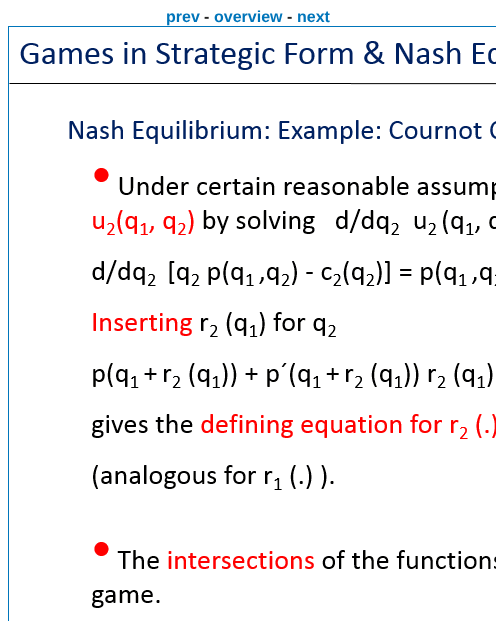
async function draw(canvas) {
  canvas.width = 496;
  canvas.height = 621;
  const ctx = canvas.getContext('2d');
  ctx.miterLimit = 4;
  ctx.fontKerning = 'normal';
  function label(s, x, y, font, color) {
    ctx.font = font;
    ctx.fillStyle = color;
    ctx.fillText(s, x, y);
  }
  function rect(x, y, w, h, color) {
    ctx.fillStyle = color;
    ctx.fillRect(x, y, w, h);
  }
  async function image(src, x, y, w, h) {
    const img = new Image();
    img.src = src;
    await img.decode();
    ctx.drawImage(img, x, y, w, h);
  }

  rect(0, 0, 496, 621, '#fff');
  label('prev', 166, 22, 'bold 16px Liberation Sans', '#0075ba');
  ctx.strokeStyle = '#0075ba';
  ctx.strokeRect(8.5, 26.5, 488, 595);
  label('-', 204, 22, 'bold 16px Liberation Sans', '#222');
  label('overview', 214, 22, 'bold 16px Liberation Sans', '#0075ba');
  label('-', 287, 22, 'bold 16px Liberation Sans', '#222');
  label('next', 297, 22, 'bold 16px Liberation Sans', '#0075ba');
  await image('assets/img1.png', 9, 41, 487, 567);
}

draw(document.querySelector('canvas'));
